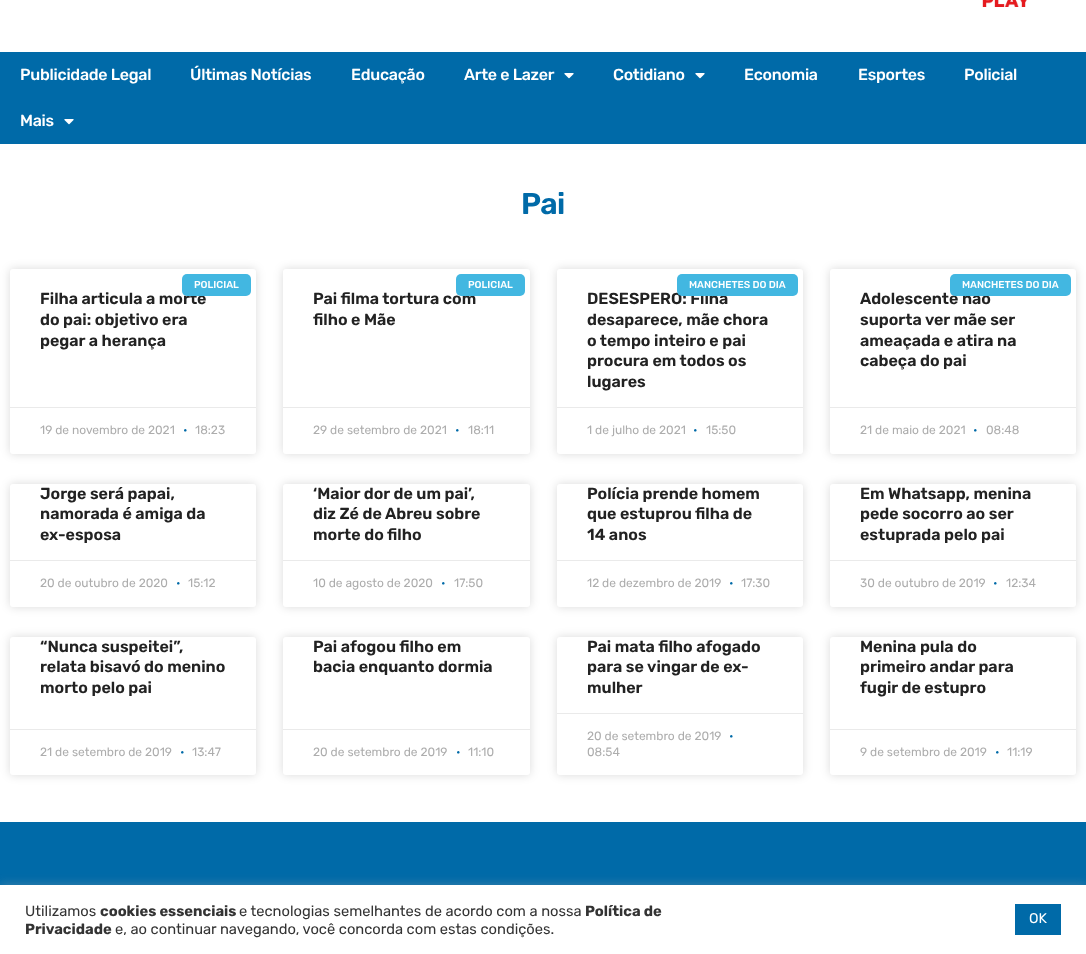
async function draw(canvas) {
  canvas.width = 1086;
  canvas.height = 954;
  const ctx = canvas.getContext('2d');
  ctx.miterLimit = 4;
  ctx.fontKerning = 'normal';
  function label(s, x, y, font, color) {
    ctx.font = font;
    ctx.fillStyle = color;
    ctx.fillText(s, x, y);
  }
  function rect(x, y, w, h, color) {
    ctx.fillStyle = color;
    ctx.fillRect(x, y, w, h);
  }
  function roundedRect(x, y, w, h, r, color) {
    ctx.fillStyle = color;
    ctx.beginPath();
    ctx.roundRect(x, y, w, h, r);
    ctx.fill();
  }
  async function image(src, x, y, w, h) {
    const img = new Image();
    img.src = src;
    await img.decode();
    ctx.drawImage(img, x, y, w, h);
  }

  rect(0, 0, 1086, 954, '#fff');
  await image('assets/img1.png', 982, 0, 45, 7);
  rect(0, 52, 1086, 92, '#006aa8');
  ctx.letterSpacing = '-0.25px';
  label('Publicidade Legal', 20, 80, '500 16px Rubik', '#fff');
  label('Últimas Notícias', 190, 80, '500 16px Rubik', '#fff');
  label('Educação', 351, 80, '500 16px Rubik', '#fff');
  label('Arte e Lazer', 464, 80, '500 16px Rubik', '#fff');
  await image('assets/img2.png', 564, 73, 10, 6);
  label('Cotidiano', 613, 80, '500 16px Rubik', '#fff');
  await image('assets/img2.png', 695, 73, 10, 6);
  label('Economia', 744, 80, '500 16px Rubik', '#fff');
  label('Esportes', 858, 80, '500 16px Rubik', '#fff');
  label('Policial', 964, 80, '500 16px Rubik', '#fff');
  label('Mais', 20, 126, '500 16px Rubik', '#fff');
  await image('assets/img2.png', 64, 119, 10, 6);
  ctx.letterSpacing = '-0.5px';
  label('Pai', 521, 214, '600 30px Rubik', '#006aa8');
  ctx.fillStyle = '#00000026';
  ctx.filter = 'blur(5px)';
  ctx.beginPath();
  ctx.roundRect(10, 269, 246, 185, 3);
  ctx.fill();
  ctx.filter = 'none';
  roundedRect(10, 269, 246, 185, 3, '#fff');
  ctx.letterSpacing = '0px';
  label('Filha articula a morte', 40, 304, '600 16px Rubik', '#222');
  roundedRect(182, 274, 69, 22, 5, '#42b7e1');
  label('POLICIAL', 194, 288, '500 10px Rubik', '#fff');
  label('do pai: objetivo era', 40, 325, '600 16px Rubik', '#222');
  label('pegar a herança', 40, 346, '600 16px Rubik', '#222');
  rect(10, 407, 246, 1, '#eaeaea');
  label('19 de novembro de 2021', 40, 434, '12px Rubik', '#adadad');
  label('•', 183, 434, '12px Rubik', '#006aa8');
  label('18:23', 195, 434, '12px Rubik', '#adadad');
  ctx.fillStyle = '#00000026';
  ctx.filter = 'blur(5px)';
  ctx.beginPath();
  ctx.roundRect(283, 269, 247, 185, 3);
  ctx.fill();
  ctx.filter = 'none';
  roundedRect(283, 269, 247, 185, 3, '#fff');
  label('Pai filma tortura com', 313, 304, '600 16px Rubik', '#222');
  roundedRect(456, 274, 69, 22, 5, '#42b7e1');
  label('POLICIAL', 468, 288, '500 10px Rubik', '#fff');
  label('filho e Mãe', 313, 325, '600 16px Rubik', '#222');
  rect(283, 407, 247, 1, '#eaeaea');
  label('29 de setembro de 2021', 313, 434, '12px Rubik', '#adadad');
  label('•', 455, 434, '12px Rubik', '#006aa8');
  label('18:11', 468, 434, '12px Rubik', '#adadad');
  ctx.fillStyle = '#00000026';
  ctx.filter = 'blur(5px)';
  ctx.beginPath();
  ctx.roundRect(557, 269, 246, 185, 3);
  ctx.fill();
  ctx.filter = 'none';
  roundedRect(557, 269, 246, 185, 3, '#fff');
  label('DESESPERO: Filha', 587, 304, '600 16px Rubik', '#222');
  roundedRect(677, 274, 121, 22, 5, '#42b7e1');
  label('MANCHETES DO DIA', 689, 288, '500 10px Rubik', '#fff');
  label('desaparece, mãe chora', 587, 325, '600 16px Rubik', '#222');
  label('o tempo inteiro e pai', 587, 346, '600 16px Rubik', '#222');
  label('procura em todos os', 587, 366, '600 16px Rubik', '#222');
  label('lugares', 587, 387, '600 16px Rubik', '#222');
  rect(557, 407, 246, 1, '#eaeaea');
  label('1 de julho de 2021', 587, 434, '12px Rubik', '#adadad');
  label('•', 693, 434, '12px Rubik', '#006aa8');
  label('15:50', 706, 434, '12px Rubik', '#adadad');
  ctx.fillStyle = '#00000026';
  ctx.filter = 'blur(5px)';
  ctx.beginPath();
  ctx.roundRect(830, 269, 246, 185, 3);
  ctx.fill();
  ctx.filter = 'none';
  roundedRect(830, 269, 246, 185, 3, '#fff');
  label('Adolescente não', 860, 304, '600 16px Rubik', '#222');
  roundedRect(950, 274, 121, 22, 5, '#42b7e1');
  label('MANCHETES DO DIA', 962, 288, '500 10px Rubik', '#fff');
  label('suporta ver mãe ser', 860, 325, '600 16px Rubik', '#222');
  label('ameaçada e atira na', 860, 346, '600 16px Rubik', '#222');
  label('cabeça do pai', 860, 366, '600 16px Rubik', '#222');
  rect(830, 407, 246, 1, '#eaeaea');
  label('21 de maio de 2021', 860, 434, '12px Rubik', '#adadad');
  label('•', 973, 434, '12px Rubik', '#006aa8');
  label('08:48', 986, 434, '12px Rubik', '#adadad');
  ctx.fillStyle = '#00000026';
  ctx.filter = 'blur(5px)';
  ctx.beginPath();
  ctx.roundRect(10, 484, 246, 123, 3);
  ctx.fill();
  ctx.filter = 'none';
  roundedRect(10, 484, 246, 123, 3, '#fff');
  label('Jorge será papai,', 40, 499, '600 16px Rubik', '#222');
  label('namorada é amiga da', 40, 519, '600 16px Rubik', '#222');
  label('ex-esposa', 40, 540, '600 16px Rubik', '#222');
  rect(10, 560, 246, 1, '#eaeaea');
  label('20 de outubro de 2020', 40, 587, '12px Rubik', '#adadad');
  label('•', 176, 587, '12px Rubik', '#006aa8');
  label('15:12', 188, 587, '12px Rubik', '#adadad');
  ctx.fillStyle = '#00000026';
  ctx.filter = 'blur(5px)';
  ctx.beginPath();
  ctx.roundRect(283, 484, 247, 123, 3);
  ctx.fill();
  ctx.filter = 'none';
  roundedRect(283, 484, 247, 123, 3, '#fff');
  label('‘Maior dor de um pai’,', 313, 499, '600 16px Rubik', '#222');
  label('diz Zé de Abreu sobre', 313, 519, '600 16px Rubik', '#222');
  label('morte do filho', 313, 540, '600 16px Rubik', '#222');
  rect(283, 560, 247, 1, '#eaeaea');
  label('10 de agosto de 2020', 313, 587, '12px Rubik', '#adadad');
  label('•', 441, 587, '12px Rubik', '#006aa8');
  label('17:50', 454, 587, '12px Rubik', '#adadad');
  ctx.fillStyle = '#00000026';
  ctx.filter = 'blur(5px)';
  ctx.beginPath();
  ctx.roundRect(557, 484, 246, 123, 3);
  ctx.fill();
  ctx.filter = 'none';
  roundedRect(557, 484, 246, 123, 3, '#fff');
  label('Polícia prende homem', 587, 499, '600 16px Rubik', '#222');
  label('que estuprou filha de', 587, 519, '600 16px Rubik', '#222');
  label('14 anos', 587, 540, '600 16px Rubik', '#222');
  rect(557, 560, 246, 1, '#eaeaea');
  label('12 de dezembro de 2019', 587, 587, '12px Rubik', '#adadad');
  label('•', 729, 587, '12px Rubik', '#006aa8');
  label('17:30', 741, 587, '12px Rubik', '#adadad');
  ctx.fillStyle = '#00000026';
  ctx.filter = 'blur(5px)';
  ctx.beginPath();
  ctx.roundRect(830, 484, 246, 123, 3);
  ctx.fill();
  ctx.filter = 'none';
  roundedRect(830, 484, 246, 123, 3, '#fff');
  label('Em Whatsapp, menina', 860, 499, '600 16px Rubik', '#222');
  label('pede socorro ao ser', 860, 519, '600 16px Rubik', '#222');
  label('estuprada pelo pai', 860, 540, '600 16px Rubik', '#222');
  rect(830, 560, 246, 1, '#eaeaea');
  label('30 de outubro de 2019', 860, 587, '12px Rubik', '#adadad');
  label('•', 993, 587, '12px Rubik', '#006aa8');
  label('12:34', 1006, 587, '12px Rubik', '#adadad');
  ctx.fillStyle = '#00000026';
  ctx.filter = 'blur(5px)';
  ctx.beginPath();
  ctx.roundRect(10, 637, 246, 138, 3);
  ctx.fill();
  ctx.filter = 'none';
  roundedRect(10, 637, 246, 138, 3, '#fff');
  label('“Nunca suspeitei”,', 40, 652, '600 16px Rubik', '#222');
  label('relata bisavó do menino', 40, 672, '600 16px Rubik', '#222');
  label('morto pelo pai', 40, 693, '600 16px Rubik', '#222');
  rect(10, 729, 246, 1, '#eaeaea');
  label('21 de setembro de 2019', 40, 756, '12px Rubik', '#adadad');
  label('•', 180, 756, '12px Rubik', '#006aa8');
  label('13:47', 192, 756, '12px Rubik', '#adadad');
  ctx.fillStyle = '#00000026';
  ctx.filter = 'blur(5px)';
  ctx.beginPath();
  ctx.roundRect(283, 637, 247, 138, 3);
  ctx.fill();
  ctx.filter = 'none';
  roundedRect(283, 637, 247, 138, 3, '#fff');
  label('Pai afogou filho em', 313, 652, '600 16px Rubik', '#222');
  label('bacia enquanto dormia', 313, 672, '600 16px Rubik', '#222');
  rect(283, 729, 247, 1, '#eaeaea');
  label('20 de setembro de 2019', 313, 756, '12px Rubik', '#adadad');
  label('•', 456, 756, '12px Rubik', '#006aa8');
  label('11:10', 468, 756, '12px Rubik', '#adadad');
  ctx.fillStyle = '#00000026';
  ctx.filter = 'blur(5px)';
  ctx.beginPath();
  ctx.roundRect(557, 637, 246, 138, 3);
  ctx.fill();
  ctx.filter = 'none';
  roundedRect(557, 637, 246, 138, 3, '#fff');
  label('Pai mata filho afogado', 587, 652, '600 16px Rubik', '#222');
  label('para se vingar de ex-', 587, 672, '600 16px Rubik', '#222');
  label('mulher', 587, 693, '600 16px Rubik', '#222');
  rect(557, 713, 246, 1, '#eaeaea');
  label('20 de setembro de 2019', 587, 740, '12px Rubik', '#adadad');
  label('•', 729, 740, '12px Rubik', '#006aa8');
  label('08:54', 587, 756, '12px Rubik', '#adadad');
  ctx.fillStyle = '#00000026';
  ctx.filter = 'blur(5px)';
  ctx.beginPath();
  ctx.roundRect(830, 637, 246, 138, 3);
  ctx.fill();
  ctx.filter = 'none';
  roundedRect(830, 637, 246, 138, 3, '#fff');
  label('Menina pula do', 860, 652, '600 16px Rubik', '#222');
  label('primeiro andar para', 860, 672, '600 16px Rubik', '#222');
  label('fugir de estupro', 860, 693, '600 16px Rubik', '#222');
  rect(830, 729, 246, 1, '#eaeaea');
  label('9 de setembro de 2019', 860, 756, '12px Rubik', '#adadad');
  label('•', 995, 756, '12px Rubik', '#006aa8');
  label('11:19', 1007, 756, '12px Rubik', '#adadad');
  rect(0, 822, 1086, 63, '#006aa8');
  ctx.fillStyle = '#acabab4d';
  ctx.filter = 'blur(5px)';
  ctx.beginPath();
  ctx.rect(0, 884, 1086, 69);
  ctx.fill();
  ctx.filter = 'none';
  rect(0, 885, 1086, 69, '#fff');
  label('Utilizamos', 25, 916, '14.7px Rubik', '#333');
  label('cookies essenciais', 100, 916, 'bold 14.7px Rubik', '#333');
  label('e tecnologias semelhantes de acordo com a nossa', 239, 916, '14.7px Rubik', '#333');
  label('Política de', 585, 916, 'bold 14.7px Rubik', '#333');
  label('Privacidade', 25, 934, 'bold 14.7px Rubik', '#333');
  label('e, ao continuar navegando, você concorda com estas condições.', 115, 934, '14.7px Rubik', '#333');
  rect(1015, 904, 46, 31, '#006aa8');
  label('OK', 1029, 923, '14px Rubik', '#fff');
}

draw(document.querySelector('canvas'));
